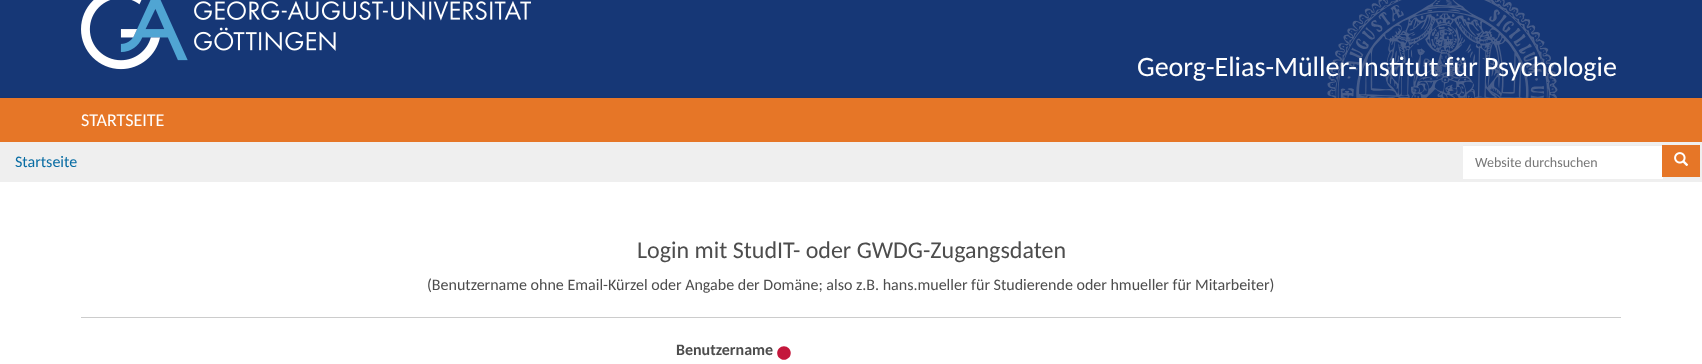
async function draw(canvas) {
  canvas.width = 1702;
  canvas.height = 364;
  const ctx = canvas.getContext('2d');
  ctx.miterLimit = 4;
  ctx.fontKerning = 'normal';
  function label(s, x, y, font, color) {
    ctx.font = font;
    ctx.fillStyle = color;
    ctx.fillText(s, x, y);
  }
  function rect(x, y, w, h, color) {
    ctx.fillStyle = color;
    ctx.fillRect(x, y, w, h);
  }
  async function image(src, x, y, w, h) {
    const img = new Image();
    img.src = src;
    await img.decode();
    ctx.drawImage(img, x, y, w, h);
  }

  rect(0, 0, 1702, 364, '#fff');
  rect(0, 0, 1702, 98, '#163776');
  await image('assets/img1.png', 1327, 0, 231, 98);
  await image('assets/img2.png', 81, 0, 450, 70);
  label('Georg-Elias-Müller-Institut für Psychologie', 1137, 76, '28px Carlito', '#fff');
  ctx.fillStyle = '#0000002b';
  ctx.filter = 'blur(1.5px)';
  ctx.beginPath();
  ctx.rect(0, 99, 1702, 44);
  ctx.fill();
  ctx.filter = 'none';
  rect(0, 98, 1702, 44, '#e67627');
  label('STARTSEITE', 81, 126, '18px Carlito', '#fff');
  rect(0, 142, 1702, 40, '#efefef');
  label('Startseite', 15, 167, '16px Carlito', '#086ca3');
  rect(1463, 146, 200, 33, '#fff');
  rect(1463, 145, 200, 1, '#ececec');
  label('Website durchsuchen', 1475, 167, '14px Carlito', '#777');
  rect(1662, 145, 38, 32, '#e67627');
  await image('assets/img3.png', 1674, 152, 15, 14);
  label('Login mit StudIT- oder GWDG-Zugangsdaten', 637, 258, '24px Carlito', '#4d4d4d');
  label('(Benutzername ohne Email-Kürzel oder Angabe der Domäne; also z.B. hans.mueller für Studierende oder hmueller für Mitarbeiter)', 427, 290, '16px Carlito', '#4d4d4d');
  rect(81, 317, 1540, 1, '#ccc');
  label('Benutzername', 676, 355, 'bold 16px Carlito', '#4d4d4d');
  label('•', 776, 362, 'bold 32px Carlito', '#c4183c');
}

draw(document.querySelector('canvas'));
